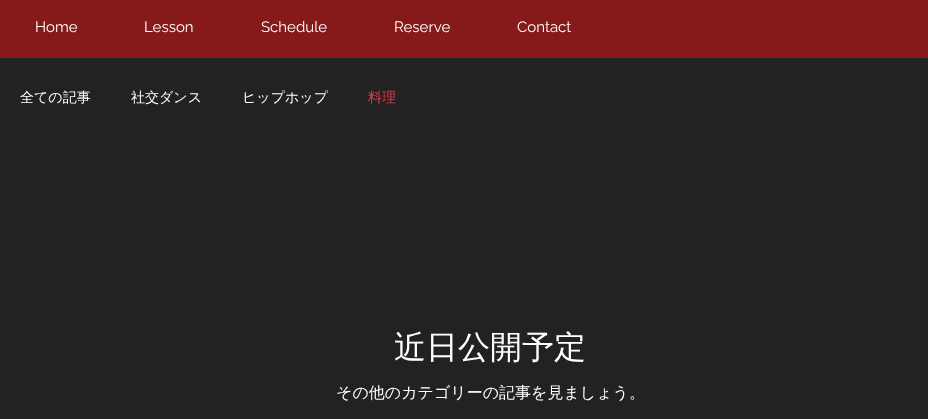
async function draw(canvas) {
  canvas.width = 928;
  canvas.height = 419;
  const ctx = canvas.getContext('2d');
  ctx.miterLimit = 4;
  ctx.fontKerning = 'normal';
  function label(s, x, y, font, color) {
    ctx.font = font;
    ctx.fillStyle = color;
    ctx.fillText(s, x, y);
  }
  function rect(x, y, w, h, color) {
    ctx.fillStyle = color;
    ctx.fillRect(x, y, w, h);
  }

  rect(0, 0, 928, 419, '#222');
  rect(0, 0, 928, 58, '#861919');
  label('Home', 35, 32, '15px Raleway', '#fff');
  label('Lesson', 144, 32, '15px Raleway', '#fff');
  label('Schedule', 261, 32, '15px Raleway', '#fff');
  label('Reserve', 394, 32, '15px Raleway', '#fff');
  label('Contact', 517, 32, '15px Raleway', '#fff');
  label('全ての記事', 20, 102, '500 14px WenQuanYi Zen Hei', '#fff');
  label('社交ダンス', 131, 102, '500 14px WenQuanYi Zen Hei', '#fff');
  label('ヒップホップ', 242, 102, '500 14px WenQuanYi Zen Hei', '#fff');
  label('料理', 368, 102, '500 14px WenQuanYi Zen Hei', '#ec3642');
  label('近日公開予定', 394, 358, '500 32px WenQuanYi Zen Hei', '#fff');
  label('その他のカテゴリーの記事を見ましょう。', 336, 398, '500 16px WenQuanYi Zen Hei', '#fff');
}

draw(document.querySelector('canvas'));
